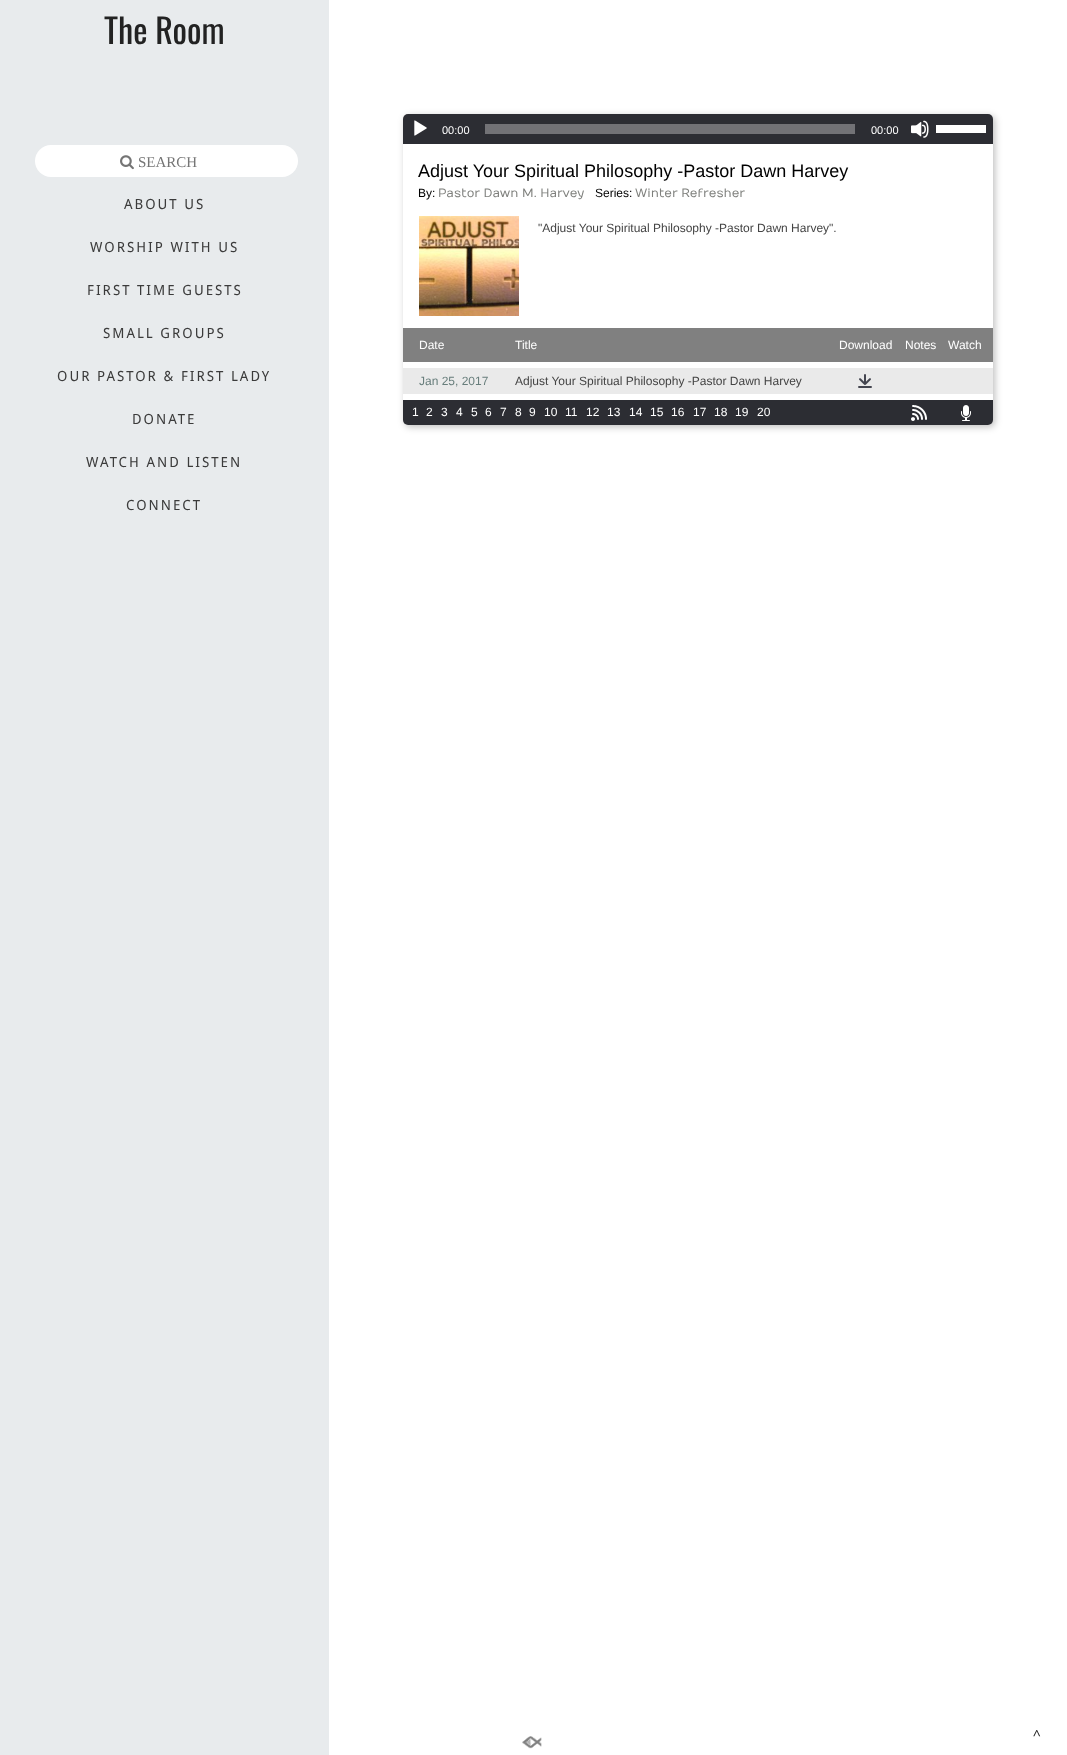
async function draw(canvas) {
  canvas.width = 1067;
  canvas.height = 1755;
  const ctx = canvas.getContext('2d');
  ctx.miterLimit = 4;
  ctx.fontKerning = 'normal';
  function label(s, x, y, font, color) {
    ctx.font = font;
    ctx.fillStyle = color;
    ctx.fillText(s, x, y);
  }
  function rect(x, y, w, h, color) {
    ctx.fillStyle = color;
    ctx.fillRect(x, y, w, h);
  }
  function roundedRect(x, y, w, h, r, color) {
    ctx.fillStyle = color;
    ctx.beginPath();
    ctx.roundRect(x, y, w, h, r);
    ctx.fill();
  }
  async function image(src, x, y, w, h) {
    const img = new Image();
    img.src = src;
    await img.decode();
    ctx.drawImage(img, x, y, w, h);
  }

  rect(0, 0, 1067, 1755, '#fff');
  rect(0, 0, 329, 1755, '#e8ebed');
  label('The Room', 104, 44, '34px Oswald', '#222');
  roundedRect(35, 145, 263, 32, 16, '#fff');
  await image('assets/img1.png', 120, 155, 14, 15);
  label('SEARCH', 138, 167, '15px Liberation Serif', '#757575');
  ctx.letterSpacing = '2px';
  label('ABOUT US', 124, 209, '14px Droid Sans', '#3b3b3b');
  label('WORSHIP WITH US', 90, 252, '14px Droid Sans', '#3b3b3b');
  label('FIRST TIME GUESTS', 87, 295, '14px Droid Sans', '#3b3b3b');
  label('SMALL GROUPS', 103, 338, '14px Droid Sans', '#3b3b3b');
  label('OUR PASTOR & FIRST LADY', 57, 381, '14px Droid Sans', '#3b3b3b');
  label('DONATE', 132, 424, '14px Droid Sans', '#3b3b3b');
  label('WATCH AND LISTEN', 86, 467, '14px Droid Sans', '#3b3b3b');
  label('CONNECT', 126, 510, '14px Droid Sans', '#3b3b3b');
  ctx.fillStyle = '#00000040';
  ctx.filter = 'blur(3.5px)';
  ctx.beginPath();
  ctx.roundRect(405, 116, 590, 311, 5);
  ctx.fill();
  ctx.filter = 'none';
  roundedRect(403, 114, 590, 311, 5, '#fff');
  ctx.fillStyle = '#2c2d33';
  ctx.beginPath();
  ctx.roundRect(403, 114, 590, 30, [5, 5, 0, 0]);
  ctx.fill();
  await image('assets/img2.png', 414, 120, 13, 16);
  ctx.letterSpacing = '0px';
  label('00:00', 442, 134, '11px Liberation Sans', '#fff');
  rect(485, 124, 370, 10, '#727276');
  label('00:00', 871, 134, '11px Liberation Sans', '#fff');
  await image('assets/img3.png', 911, 120, 18, 18);
  rect(936, 125, 50, 8, '#fff');
  label('Adjust Your Spiritual Philosophy -Pastor Dawn Harvey', 418, 177, '18px Liberation Sans', '#000');
  label('By:', 418, 197, '12px Liberation Sans', '#000');
  label('Pastor Dawn M. Harvey', 438, 197, '12px Numans', '#7f807d');
  label('Series:', 595, 197, '12px Liberation Sans', '#000');
  label('Winter Refresher', 635, 197, '12px Numans', '#7f807d');
  await image('assets/img4.png', 419, 216, 100, 100);
  label('"Adjust Your Spiritual Philosophy -Pastor Dawn Harvey".', 538, 232, '12px Liberation Sans', '#444');
  rect(403, 328, 590, 34, '#808080');
  label('Date', 419, 349, '12px Liberation Sans', '#fff');
  label('Title', 515, 349, '12px Liberation Sans', '#fff');
  label('Download', 839, 349, '12px Liberation Sans', '#fff');
  label('Notes', 905, 349, '12px Liberation Sans', '#fff');
  label('Watch', 948, 349, '12px Liberation Sans', '#fff');
  rect(403, 368, 590, 26, '#eaeaea');
  label('Jan 25, 2017', 419, 385, '12px Liberation Sans', '#687e7c');
  label('Adjust Your Spiritual Philosophy -Pastor Dawn Harvey', 515, 385, '12px Liberation Sans', '#444');
  await image('assets/img5.png', 858, 374, 14, 14);
  ctx.fillStyle = '#2c2d33';
  ctx.beginPath();
  ctx.roundRect(403, 400, 590, 25, [0, 0, 5, 5]);
  ctx.fill();
  label('1', 412, 416, '12px Liberation Sans', '#fff');
  label('2', 426, 416, '12px Liberation Sans', '#fff');
  label('3', 441, 416, '12px Liberation Sans', '#fff');
  label('4', 456, 416, '12px Liberation Sans', '#fff');
  label('5', 471, 416, '12px Liberation Sans', '#fff');
  label('6', 485, 416, '12px Liberation Sans', '#fff');
  label('7', 500, 416, '12px Liberation Sans', '#fff');
  label('8', 515, 416, '12px Liberation Sans', '#fff');
  label('9', 529, 416, '12px Liberation Sans', '#fff');
  label('10', 544, 416, '12px Liberation Sans', '#fff');
  label('11', 565, 416, '12px Liberation Sans', '#fff');
  label('12', 586, 416, '12px Liberation Sans', '#fff');
  label('13', 607, 416, '12px Liberation Sans', '#fff');
  label('14', 629, 416, '12px Liberation Sans', '#fff');
  label('15', 650, 416, '12px Liberation Sans', '#fff');
  label('16', 671, 416, '12px Liberation Sans', '#fff');
  label('17', 693, 416, '12px Liberation Sans', '#fff');
  label('18', 714, 416, '12px Liberation Sans', '#fff');
  label('19', 735, 416, '12px Liberation Sans', '#fff');
  label('20', 757, 416, '12px Liberation Sans', '#fff');
  await image('assets/img6.png', 911, 405, 16, 16);
  await image('assets/img7.png', 961, 405, 10, 16);
  label('^', 1033, 1740, '14px Droid Sans', '#222');
  await image('assets/img8.png', 522, 1736, 20, 13);
}

draw(document.querySelector('canvas'));
